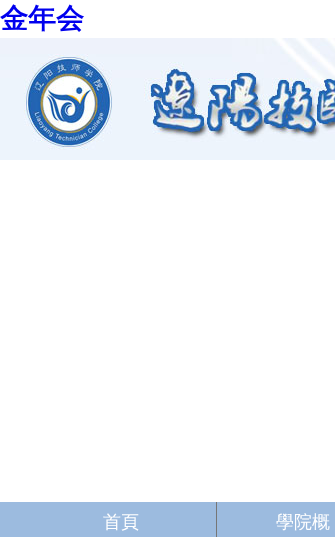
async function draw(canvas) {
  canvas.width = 335;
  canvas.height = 537;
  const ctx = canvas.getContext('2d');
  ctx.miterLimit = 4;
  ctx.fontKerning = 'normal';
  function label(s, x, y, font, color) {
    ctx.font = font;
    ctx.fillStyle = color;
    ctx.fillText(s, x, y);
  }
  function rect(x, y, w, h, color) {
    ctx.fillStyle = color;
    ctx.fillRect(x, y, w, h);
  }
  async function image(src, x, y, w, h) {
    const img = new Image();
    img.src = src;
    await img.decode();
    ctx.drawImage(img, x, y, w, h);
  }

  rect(0, 0, 335, 537, '#fff');
  label('金年会', 0, 28, 'bold 28px WenQuanYi Zen Hei', '#00e');
  await image('assets/img1.png', 0, 38, 335, 122);
  rect(0, 502, 335, 35, '#9cbbdf');
  rect(216, 502, 1, 35, '#767676');
  label('首頁', 103, 528, '500 18px WenQuanYi Zen Hei', '#fff');
  label('學院概', 276, 528, '500 18px WenQuanYi Zen Hei', '#fff');
}

draw(document.querySelector('canvas'));
